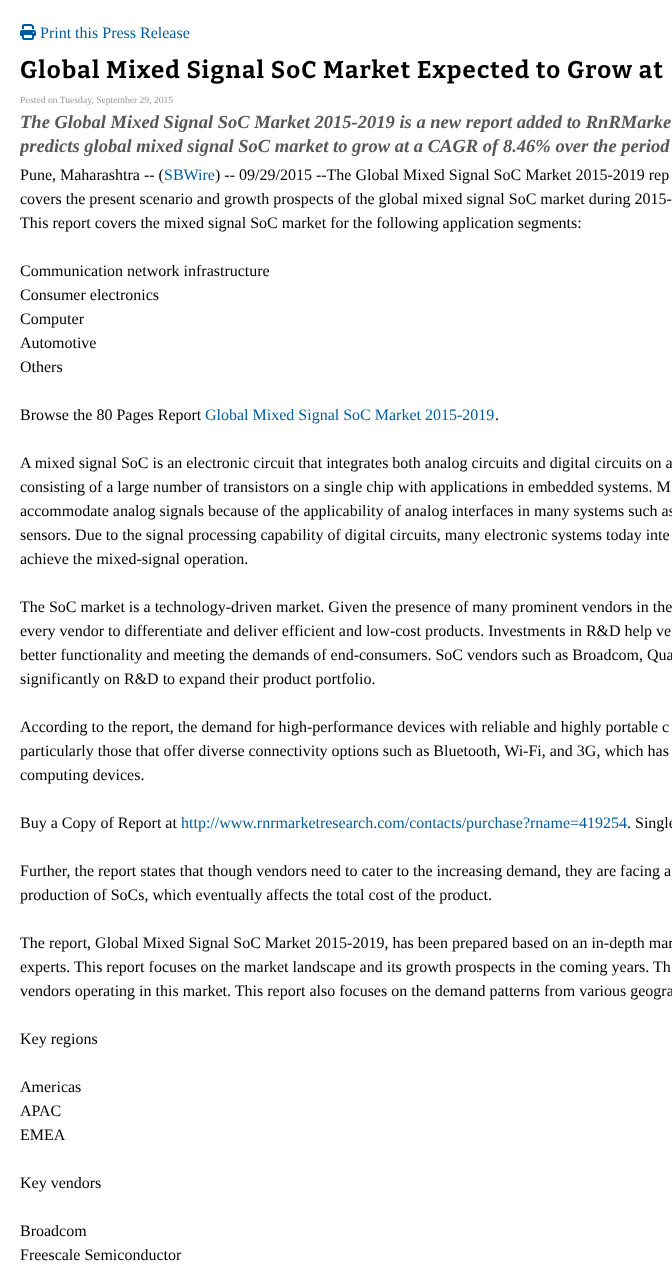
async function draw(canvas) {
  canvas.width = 672;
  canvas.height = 1266;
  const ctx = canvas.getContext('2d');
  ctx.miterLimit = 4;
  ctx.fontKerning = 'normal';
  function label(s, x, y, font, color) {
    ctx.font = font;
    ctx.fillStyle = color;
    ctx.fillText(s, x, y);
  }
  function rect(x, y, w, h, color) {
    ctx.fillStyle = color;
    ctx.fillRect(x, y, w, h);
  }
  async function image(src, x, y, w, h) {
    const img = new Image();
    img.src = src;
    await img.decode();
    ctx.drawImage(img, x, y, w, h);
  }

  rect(0, 0, 672, 1266, '#fff');
  await image('assets/img1.png', 20, 24, 16, 16);
  label('Print this Press Release', 40, 38, '16px Liberation Serif', '#005c9c');
  ctx.letterSpacing = '1.2px';
  label('Global Mixed Signal SoC Market Expected to Grow at', 20, 78, 'bold 24px Bitter', '#000');
  ctx.letterSpacing = '0px';
  label('Posted on Tuesday, September 29, 2015', 20, 103, '9.6px Liberation Serif', '#999');
  label('The Global Mixed Signal SoC Market 2015-2019 is a new report added to RnRMarke', 20, 128, 'italic bold 18.55px Liberation Serif', '#575757');
  ctx.save();
  ctx.beginPath();
  ctx.rect(20, 57, 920, 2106);
  ctx.clip();
  label('predicts global mixed signal SoC market to grow at a CAGR of 8.46% over the period', 20, 152, 'italic bold 18.55px Liberation Serif', '#575757');
  ctx.restore();
  label('Pune, Maharashtra -- (', 20, 180, '16px Liberation Serif', '#000');
  label('SBWire', 164, 180, '16px Liberation Serif', '#005c9c');
  label(') -- 09/29/2015 --The Global Mixed Signal SoC Market 2015-2019 rep', 215, 180, '16px Liberation Serif', '#000');
  label('covers the present scenario and growth prospects of the global mixed signal SoC market during 2015-', 20, 204, '16px Liberation Serif', '#000');
  label('This report covers the mixed signal SoC market for the following application segments:', 20, 228, '16px Liberation Serif', '#000');
  label('Communication network infrastructure', 20, 276, '16px Liberation Serif', '#000');
  label('Consumer electronics', 20, 300, '16px Liberation Serif', '#000');
  label('Computer', 20, 324, '16px Liberation Serif', '#000');
  label('Automotive', 20, 348, '16px Liberation Serif', '#000');
  label('Others', 20, 372, '16px Liberation Serif', '#000');
  label('Browse the 80 Pages Report', 20, 420, '16px Liberation Serif', '#000');
  label('Global Mixed Signal SoC Market 2015-2019', 205, 420, '16px Liberation Serif', '#005c9c');
  label('.', 495, 420, '16px Liberation Serif', '#000');
  label('A mixed signal SoC is an electronic circuit that integrates both analog circuits and digital circuits on a', 20, 468, '16px Liberation Serif', '#000');
  label('consisting of a large number of transistors on a single chip with applications in embedded systems. M', 20, 492, '16px Liberation Serif', '#000');
  label('accommodate analog signals because of the applicability of analog interfaces in many systems such as', 20, 516, '16px Liberation Serif', '#000');
  label('sensors. Due to the signal processing capability of digital circuits, many electronic systems today inte', 20, 540, '16px Liberation Serif', '#000');
  label('achieve the mixed-signal operation.', 20, 564, '16px Liberation Serif', '#000');
  label('The SoC market is a technology-driven market. Given the presence of many prominent vendors in the', 20, 612, '16px Liberation Serif', '#000');
  label('every vendor to differentiate and deliver efficient and low-cost products. Investments in R&D help ve', 20, 636, '16px Liberation Serif', '#000');
  label('better functionality and meeting the demands of end-consumers. SoC vendors such as Broadcom, Qua', 20, 660, '16px Liberation Serif', '#000');
  label('significantly on R&D to expand their product portfolio.', 20, 684, '16px Liberation Serif', '#000');
  label('According to the report, the demand for high-performance devices with reliable and highly portable c', 20, 732, '16px Liberation Serif', '#000');
  label('particularly those that offer diverse connectivity options such as Bluetooth, Wi-Fi, and 3G, which has', 20, 756, '16px Liberation Serif', '#000');
  label('computing devices.', 20, 780, '16px Liberation Serif', '#000');
  label('Buy a Copy of Report at', 20, 828, '16px Liberation Serif', '#000');
  label('http://www.rnrmarketresearch.com/contacts/purchase?rname=419254', 181, 828, '16px Liberation Serif', '#005c9c');
  label('. Single', 627, 828, '16px Liberation Serif', '#000');
  label('Further, the report states that though vendors need to cater to the increasing demand, they are facing a', 20, 876, '16px Liberation Serif', '#000');
  label('production of SoCs, which eventually affects the total cost of the product.', 20, 900, '16px Liberation Serif', '#000');
  label('The report, Global Mixed Signal SoC Market 2015-2019, has been prepared based on an in-depth mar', 20, 948, '16px Liberation Serif', '#000');
  label('experts. This report focuses on the market landscape and its growth prospects in the coming years. Th', 20, 972, '16px Liberation Serif', '#000');
  label('vendors operating in this market. This report also focuses on the demand patterns from various geogra', 20, 996, '16px Liberation Serif', '#000');
  label('Key regions', 20, 1044, '16px Liberation Serif', '#000');
  label('Americas', 20, 1092, '16px Liberation Serif', '#000');
  label('APAC', 20, 1116, '16px Liberation Serif', '#000');
  label('EMEA', 20, 1140, '16px Liberation Serif', '#000');
  label('Key vendors', 20, 1188, '16px Liberation Serif', '#000');
  label('Broadcom', 20, 1236, '16px Liberation Serif', '#000');
  label('Freescale Semiconductor', 20, 1260, '16px Liberation Serif', '#000');
}

draw(document.querySelector('canvas'));
